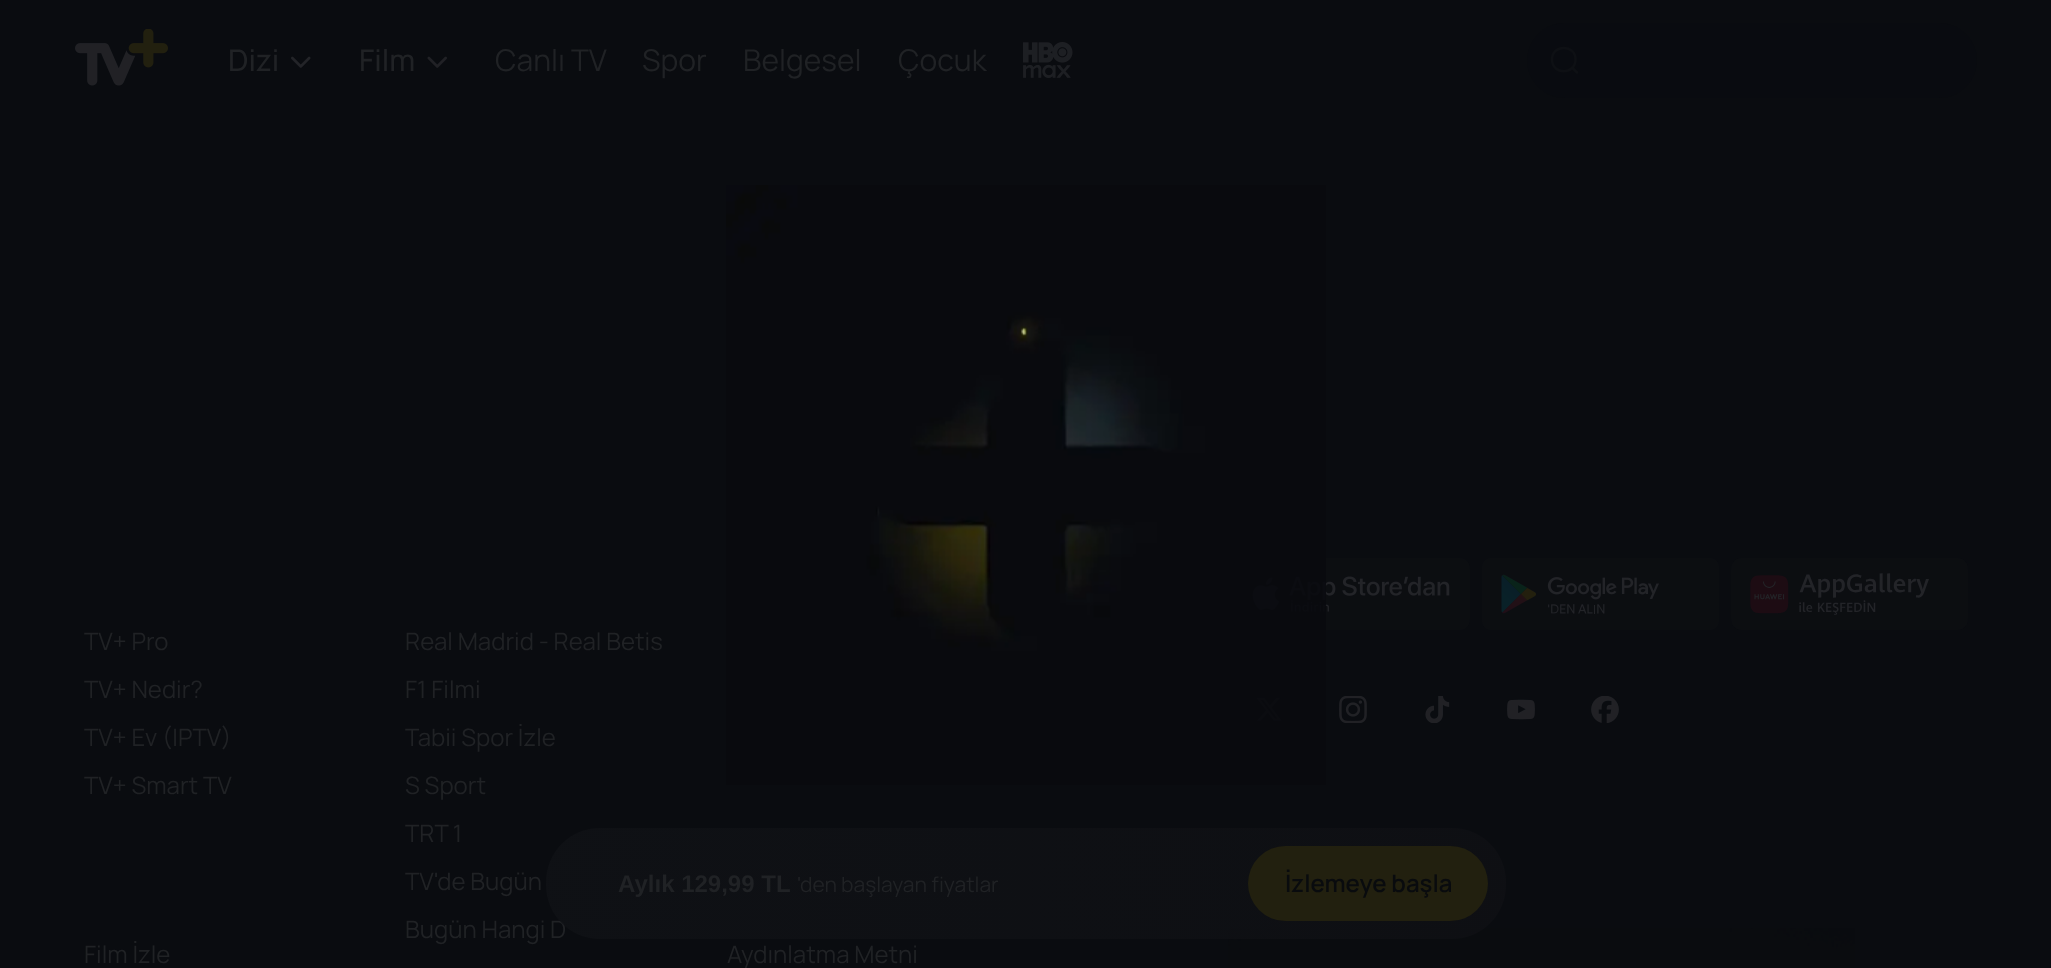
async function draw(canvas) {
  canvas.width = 2051;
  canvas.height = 968;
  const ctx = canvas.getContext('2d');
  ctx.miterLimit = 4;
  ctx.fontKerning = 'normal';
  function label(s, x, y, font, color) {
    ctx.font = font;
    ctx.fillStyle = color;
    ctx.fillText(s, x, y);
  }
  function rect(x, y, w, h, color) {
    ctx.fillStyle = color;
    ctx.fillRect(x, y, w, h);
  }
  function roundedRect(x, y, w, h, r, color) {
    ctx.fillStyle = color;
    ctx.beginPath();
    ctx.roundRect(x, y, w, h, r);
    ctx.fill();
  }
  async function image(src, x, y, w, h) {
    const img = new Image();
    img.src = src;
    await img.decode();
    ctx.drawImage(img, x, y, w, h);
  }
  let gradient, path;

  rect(0, 0, 2051, 968, '#0a0c10');
  await image('assets/img1.png', 75, 29, 93, 57);
  label('Dizi', 228, 71, '500 30px Manrope', '#202225');
  await image('assets/img2.png', 291, 56, 20, 12);
  label('Film', 359, 71, '500 30px Manrope', '#202225');
  await image('assets/img3.png', 427, 56, 20, 12);
  label('Canlı TV', 495, 71, '30px Manrope', '#202225');
  label('Spor', 642, 71, '30px Manrope', '#202225');
  label('Belgesel', 743, 71, '30px Manrope', '#202225');
  label('Çocuk', 898, 71, '30px Manrope', '#202225');
  await image('assets/img4.png', 1023, 42, 50, 36);
  path = new Path2D('M1577 72.5L1572 67.5M1575.5 59.5C1575.5 75 1552 75 1552 59.5C1552 44 1575.5 44 1575.5 59.5Z');
  ctx.strokeStyle = '#121418';
  ctx.lineWidth = 2.5;
  ctx.lineCap = 'round';
  ctx.lineJoin = 'round';
  ctx.stroke(path);
  roundedRect(1527, 23, 450, 75, 37.5, '#0a0c1070');
  label('TV+ Pro', 84, 650, '24px Manrope', '#202225');
  label('TV+ Nedir?', 84, 698, '24px Manrope', '#202225');
  label('TV+ Ev (IPTV)', 84, 746, '24px Manrope', '#202225');
  label('TV+ Smart TV', 84, 794, '24px Manrope', '#202225');
  label('Real Madrid - Real Betis', 405, 650, '24px Manrope', '#202225');
  label('F1 Filmi', 405, 698, '24px Manrope', '#202225');
  label('Tabii Spor İzle', 405, 746, '24px Manrope', '#202225');
  label('S Sport', 405, 794, '24px Manrope', '#202225');
  label('TRT 1', 405, 842, '24px Manrope', '#202225');
  label('TV\'de Bugün', 405, 890, '24px Manrope', '#202225');
  label('Bugün Hangi D', 405, 938, '24px Manrope', '#202225');
  label('Film İzle', 84, 963, '24px Manrope', '#202225');
  label('Aydınlatma Metni', 727, 963, '24px Manrope', '#202225');
  await image('assets/img5.png', 1233, 558, 237, 72);
  await image('assets/img6.png', 1482, 558, 237, 72);
  await image('assets/img7.png', 1731, 558, 237, 72);
  await image('assets/img8.png', 1256, 697, 26, 24);
  await image('assets/img9.png', 1339, 696, 28, 27);
  await image('assets/img10.png', 1425, 696, 25, 27);
  await image('assets/img11.png', 1507, 699, 28, 21);
  await image('assets/img12.png', 1591, 696, 28, 27);
  await image('assets/img13.png', 1228, 928, 627, 40);
  await image('assets/img14.png', 726, 185, 600, 600);
  gradient = ctx.createLinearGradient(546, 884, 1506, 884);
  gradient.addColorStop(0, '#101216cc');
  gradient.addColorStop(1, '#0f1014cc');
  ctx.fillStyle = gradient;
  ctx.beginPath();
  ctx.roundRect(546, 828, 960, 111, 54);
  ctx.fill();
  label('Aylık 129,99 TL', 618, 892, 'bold 24px Liberation Sans', '#202225');
  label('\'den başlayan fiyatlar', 797, 892, '21px Manrope', '#202225');
  roundedRect(1248, 846, 240, 75, 37.5, '#22200f');
  label('İzlemeye başla', 1285, 892, '600 24px Manrope', '#090b0e');
}

draw(document.querySelector('canvas'));
